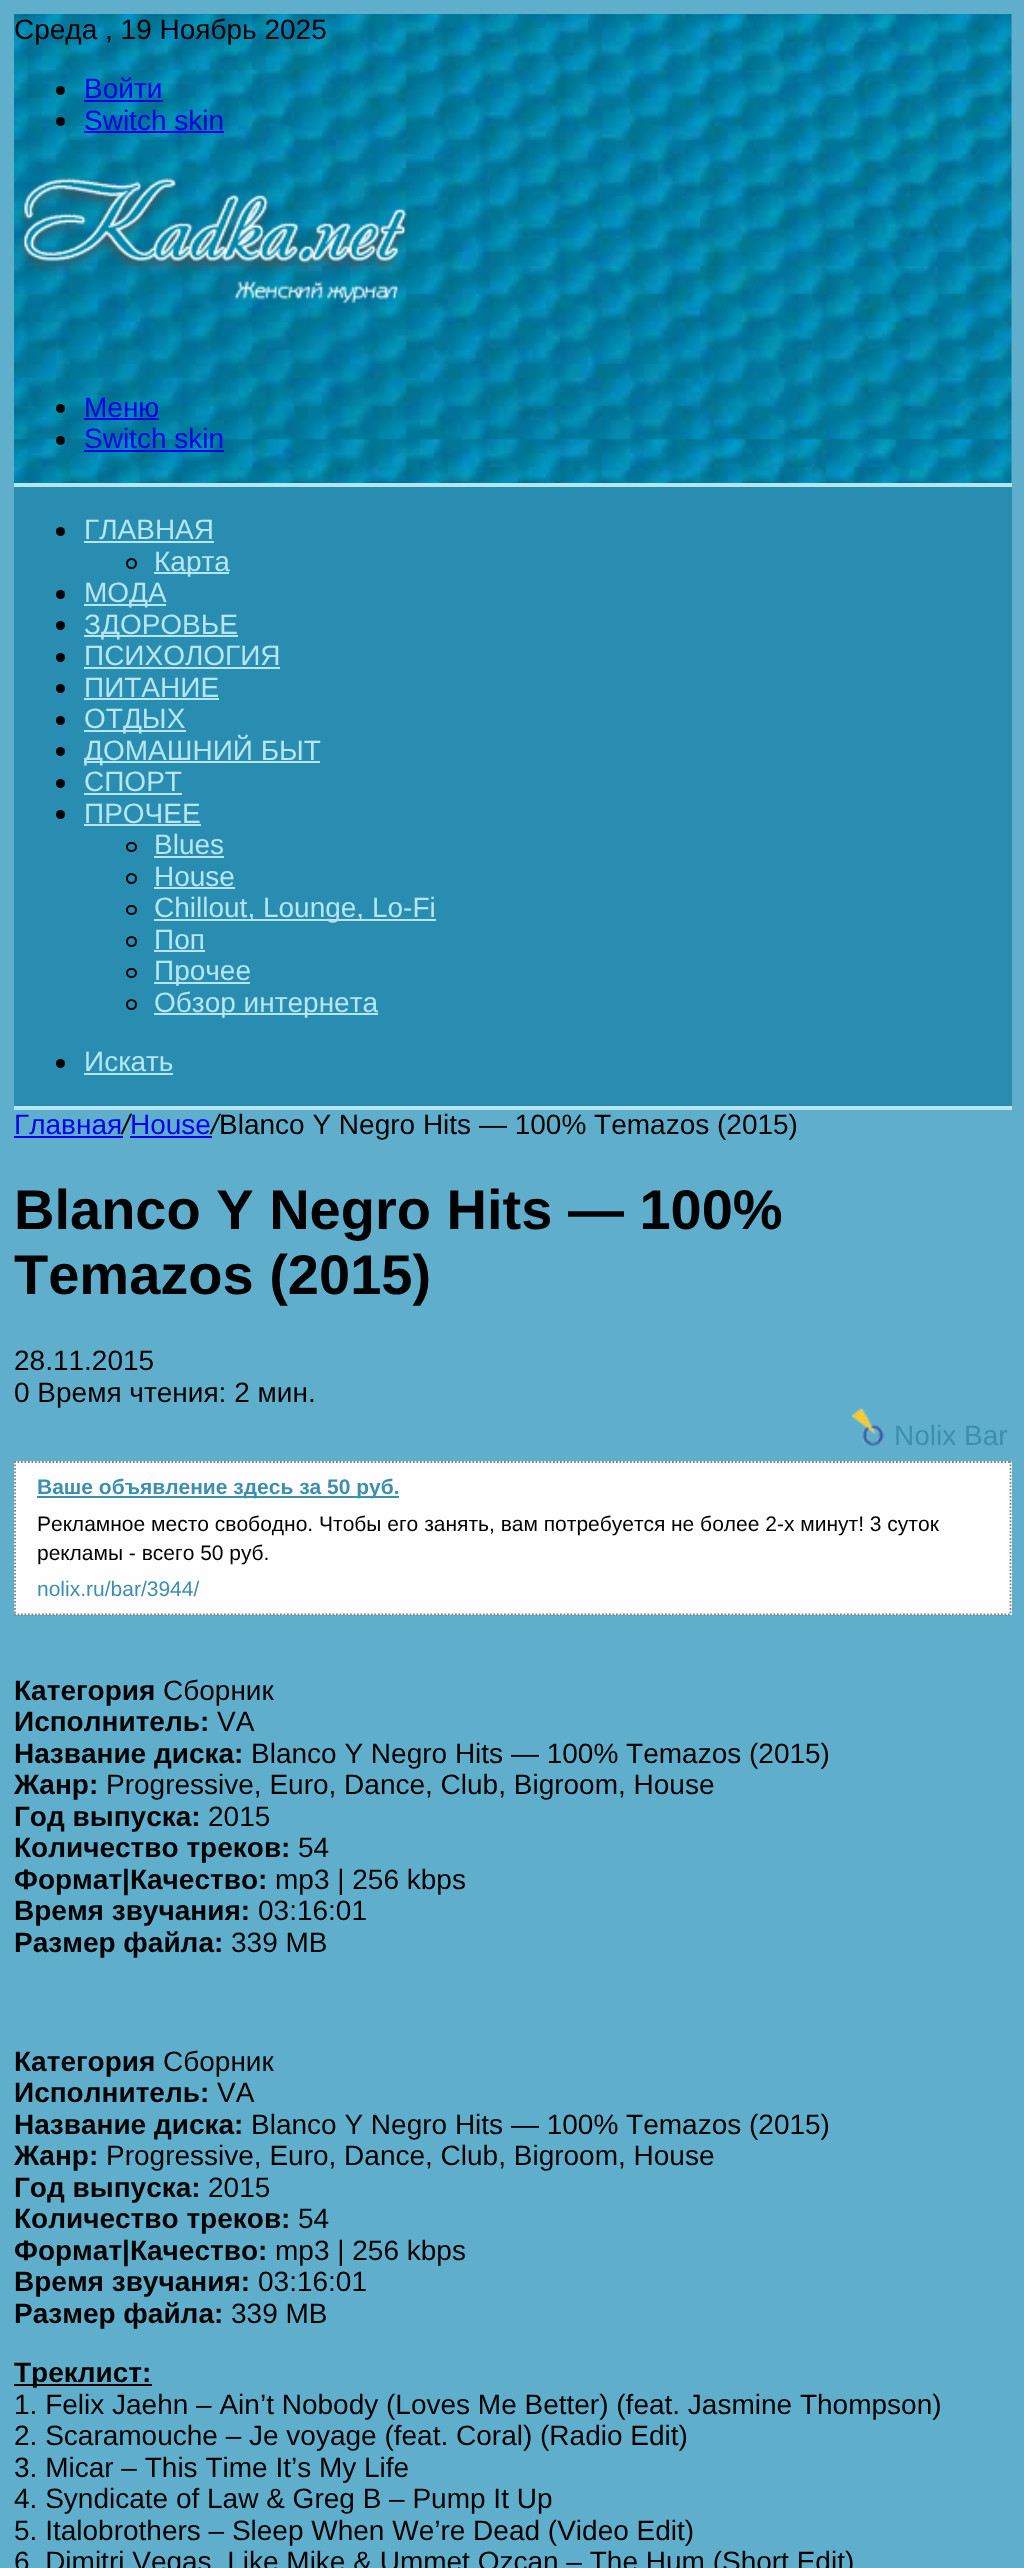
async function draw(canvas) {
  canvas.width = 1024;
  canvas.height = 2568;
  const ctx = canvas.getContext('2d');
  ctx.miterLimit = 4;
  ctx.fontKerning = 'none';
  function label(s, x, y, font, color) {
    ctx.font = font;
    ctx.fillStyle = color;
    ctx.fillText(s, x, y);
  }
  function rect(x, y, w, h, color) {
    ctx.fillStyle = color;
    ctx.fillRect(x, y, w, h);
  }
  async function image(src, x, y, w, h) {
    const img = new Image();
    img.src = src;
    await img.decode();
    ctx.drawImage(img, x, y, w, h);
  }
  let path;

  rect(0, 0, 1024, 2568, '#5fafcc');
  await image('assets/img1.png', 14, 14, 998, 469);
  label('Среда , 19 Ноябрь 2025', 14, 39, '28px Liberation Sans', '#000');
  ctx.beginPath();
  ctx.arc(60.5, 90.5, 4.5, 0, 2 * Math.PI);
  ctx.fill();
  label('Войти', 84, 98, '28px Liberation Sans', '#00e');
  rect(84, 100, 79, 2, '#00e');
  ctx.fillStyle = '#000';
  ctx.beginPath();
  ctx.arc(60.5, 121.5, 4.5, 0, 2 * Math.PI);
  ctx.fill();
  label('Switch skin', 84, 130, '28px Liberation Sans', '#00e');
  rect(84, 131, 140, 2, '#00e');
  await image('assets/img2.png', 17, 178, 392, 126);
  ctx.fillStyle = '#000';
  ctx.beginPath();
  ctx.arc(60.5, 408.5, 4.5, 0, 2 * Math.PI);
  ctx.fill();
  label('Меню', 84, 417, '28px Liberation Sans', '#00e');
  rect(84, 418, 75, 2, '#00e');
  ctx.fillStyle = '#000';
  ctx.beginPath();
  ctx.arc(60.5, 440.5, 4.5, 0, 2 * Math.PI);
  ctx.fill();
  label('Switch skin', 84, 448, '28px Liberation Sans', '#00e');
  rect(84, 450, 140, 2, '#00e');
  rect(14, 487, 998, 619, '#298db1');
  rect(14, 483, 998, 4, '#b5e6f1');
  rect(14, 1106, 998, 4, '#b5e6f1');
  ctx.fillStyle = '#000';
  ctx.beginPath();
  ctx.arc(60.5, 531.5, 4.5, 0, 2 * Math.PI);
  ctx.fill();
  label('ГЛАВНАЯ', 84, 539, '28px Liberation Sans', '#b5e6f1');
  rect(84, 541, 130, 2, '#b5e6f1');
  ctx.beginPath();
  ctx.arc(131.5, 563.5, 4.5, 0, 2 * Math.PI);
  ctx.strokeStyle = '#000';
  ctx.lineWidth = 2;
  ctx.stroke();
  rect(154, 572, 75, 2, '#b5e6f1');
  label('Карта', 154, 571, '28px Liberation Sans', '#b5e6f1');
  ctx.fillStyle = '#000';
  ctx.beginPath();
  ctx.arc(60.5, 594.5, 4.5, 0, 2 * Math.PI);
  ctx.fill();
  rect(84, 604, 82, 2, '#b5e6f1');
  label('МОДА', 84, 602, '28px Liberation Sans', '#b5e6f1');
  ctx.fillStyle = '#000';
  ctx.beginPath();
  ctx.arc(60.5, 625.5, 4.5, 0, 2 * Math.PI);
  ctx.fill();
  rect(84, 635, 154, 2, '#b5e6f1');
  label('ЗДОРОВЬЕ', 84, 634, '28px Liberation Sans', '#b5e6f1');
  ctx.fillStyle = '#000';
  ctx.beginPath();
  ctx.arc(60.5, 657.5, 4.5, 0, 2 * Math.PI);
  ctx.fill();
  label('ПСИХОЛОГИЯ', 84, 665, '28px Liberation Sans', '#b5e6f1');
  rect(84, 667, 196, 2, '#b5e6f1');
  ctx.fillStyle = '#000';
  ctx.beginPath();
  ctx.arc(60.5, 688.5, 4.5, 0, 2 * Math.PI);
  ctx.fill();
  label('ПИТАНИЕ', 84, 697, '28px Liberation Sans', '#b5e6f1');
  rect(84, 698, 135, 2, '#b5e6f1');
  ctx.fillStyle = '#000';
  ctx.beginPath();
  ctx.arc(60.5, 720.5, 4.5, 0, 2 * Math.PI);
  ctx.fill();
  rect(84, 730, 102, 2, '#b5e6f1');
  label('ОТДЫХ', 84, 728, '28px Liberation Sans', '#b5e6f1');
  ctx.fillStyle = '#000';
  ctx.beginPath();
  ctx.arc(60.5, 751.5, 4.5, 0, 2 * Math.PI);
  ctx.fill();
  rect(84, 761, 236, 2, '#b5e6f1');
  label('ДОМАШНИЙ БЫТ', 84, 760, '28px Liberation Sans', '#b5e6f1');
  ctx.fillStyle = '#000';
  ctx.beginPath();
  ctx.arc(60.5, 783.5, 4.5, 0, 2 * Math.PI);
  ctx.fill();
  label('СПОРТ', 84, 791, '28px Liberation Sans', '#b5e6f1');
  rect(84, 793, 98, 2, '#b5e6f1');
  ctx.fillStyle = '#000';
  ctx.beginPath();
  ctx.arc(60.5, 814.5, 4.5, 0, 2 * Math.PI);
  ctx.fill();
  label('ПРОЧЕЕ', 84, 823, '28px Liberation Sans', '#b5e6f1');
  rect(84, 824, 117, 2, '#b5e6f1');
  ctx.beginPath();
  ctx.roundRect(127, 843, 9, 8, 4);
  ctx.stroke();
  label('Blues', 154, 854, '28px Liberation Sans', '#b5e6f1');
  rect(154, 856, 70, 2, '#b5e6f1');
  ctx.beginPath();
  ctx.arc(131.5, 878.5, 4.5, 0, 2 * Math.PI);
  ctx.stroke();
  label('House', 154, 886, '28px Liberation Sans', '#b5e6f1');
  rect(154, 887, 81, 2, '#b5e6f1');
  ctx.beginPath();
  ctx.roundRect(127, 906, 9, 8, 4);
  ctx.stroke();
  rect(154, 919, 282, 2, '#b5e6f1');
  label('Сhillout, Lounge, Lo-Fi', 154, 917, '28px Liberation Sans', '#b5e6f1');
  ctx.beginPath();
  ctx.arc(131.5, 941.5, 4.5, 0, 2 * Math.PI);
  ctx.stroke();
  label('Поп', 154, 949, '28px Liberation Sans', '#b5e6f1');
  rect(154, 950, 51, 2, '#b5e6f1');
  ctx.beginPath();
  ctx.roundRect(127, 969, 9, 8, 4);
  ctx.stroke();
  rect(154, 982, 96, 2, '#b5e6f1');
  label('Прочее', 154, 980, '28px Liberation Sans', '#b5e6f1');
  ctx.beginPath();
  ctx.arc(131.5, 1004.5, 4.5, 0, 2 * Math.PI);
  ctx.stroke();
  rect(154, 1013, 224, 2, '#b5e6f1');
  label('Обзор интернета', 154, 1012, '28px Liberation Sans', '#b5e6f1');
  ctx.fillStyle = '#000';
  ctx.beginPath();
  ctx.arc(60.5, 1063.5, 4.5, 0, 2 * Math.PI);
  ctx.fill();
  label('Искать', 84, 1071, '28px Liberation Sans', '#b5e6f1');
  rect(84, 1073, 89, 2, '#b5e6f1');
  label('Главная', 14, 1134, '28px Liberation Sans', '#00e');
  rect(14, 1136, 109, 2, '#00e');
  label('/', 122, 1134, 'italic 28px Liberation Sans', '#000');
  label('House', 130, 1134, '28px Liberation Sans', '#00e');
  rect(130, 1136, 82, 2, '#00e');
  label('/', 211, 1134, 'italic 28px Liberation Sans', '#000');
  label('Blanco Y Negro Hits — 100% Temazos (2015)', 219, 1134, '28px Liberation Sans', '#000');
  label('Blanco Y Negro Hits — 100%', 14, 1229, 'bold 56px Liberation Sans', '#000');
  label('Temazos (2015)', 14, 1294, 'bold 56px Liberation Sans', '#000');
  label('28.11.2015', 14, 1370, '28px Liberation Sans', '#000');
  label('0 Время чтения: 2 мин.', 14, 1402, '28px Liberation Sans', '#000');
  await image('assets/img3.png', 852, 1408, 33, 38);
  label('Nolix Bar', 894, 1445, '28px Liberation Sans', '#3d8fb1');
  rect(14, 1461, 998, 154, '#fefefe');
  path = new Path2D('M14 1462H1011.5');
  ctx.strokeStyle = '#808080';
  ctx.lineWidth = 1.8;
  ctx.setLineDash([1.75, 1.75]);
  ctx.stroke(path);
  path = new Path2D('M1010.5 1461V1615');
  ctx.stroke(path);
  path = new Path2D('M14 1614.5H1011.5');
  ctx.stroke(path);
  path = new Path2D('M15 1461V1615');
  ctx.stroke(path);
  rect(37, 1496, 362, 2, '#3d8fb1');
  label('Ваше объявление здесь за 50 руб.', 37, 1494, 'bold 21px Liberation Sans', '#3d8fb1');
  label('Рекламное место свободно. Чтобы его занять, вам потребуется', 37, 1531, '21px Liberation Sans', '#000');
  label('не более 2-х минут! 3 суток', 671, 1531, '21px Liberation Sans', '#000');
  label('рекламы - всего 50 руб.', 37, 1560, '21px Liberation Sans', '#000');
  label('nolix.ru/bar/3944/', 37, 1596, '21px Liberation Sans', '#3d8fb1');
  label('Категория', 14, 1700, 'bold 28px Liberation Sans', '#000');
  label('Сборник', 163, 1700, '28px Liberation Sans', '#000');
  label('Исполнитель:', 14, 1731, 'bold 28px Liberation Sans', '#000');
  label('VA', 217, 1731, '28px Liberation Sans', '#000');
  label('Название диска:', 14, 1763, 'bold 28px Liberation Sans', '#000');
  label('Blanco Y Negro Hits — 100% Temazos (2015)', 251, 1763, '28px Liberation Sans', '#000');
  label('Жанр:', 14, 1794, 'bold 28px Liberation Sans', '#000');
  label('Progressive, Euro, Dance, Club, Bigroom, House', 106, 1794, '28px Liberation Sans', '#000');
  label('Год выпуска:', 14, 1826, 'bold 28px Liberation Sans', '#000');
  label('2015', 208, 1826, '28px Liberation Sans', '#000');
  label('Количество треков:', 14, 1857, 'bold 28px Liberation Sans', '#000');
  label('54', 298, 1857, '28px Liberation Sans', '#000');
  label('Формат|Качество:', 14, 1889, 'bold 28px Liberation Sans', '#000');
  label('mp3 | 256 kbps', 275, 1889, '28px Liberation Sans', '#000');
  label('Время звучания:', 14, 1920, 'bold 28px Liberation Sans', '#000');
  label('03:16:01', 258, 1920, '28px Liberation Sans', '#000');
  label('Размер файла:', 14, 1952, 'bold 28px Liberation Sans', '#000');
  label('339 MB', 231, 1952, '28px Liberation Sans', '#000');
  label('Категория', 14, 2071, 'bold 28px Liberation Sans', '#000');
  label('Сборник', 163, 2071, '28px Liberation Sans', '#000');
  label('Исполнитель:', 14, 2102, 'bold 28px Liberation Sans', '#000');
  label('VA', 217, 2102, '28px Liberation Sans', '#000');
  label('Название диска:', 14, 2134, 'bold 28px Liberation Sans', '#000');
  label('Blanco Y Negro Hits — 100% Temazos (2015)', 251, 2134, '28px Liberation Sans', '#000');
  label('Жанр:', 14, 2165, 'bold 28px Liberation Sans', '#000');
  label('Progressive, Euro, Dance, Club, Bigroom, House', 106, 2165, '28px Liberation Sans', '#000');
  label('Год выпуска:', 14, 2197, 'bold 28px Liberation Sans', '#000');
  label('2015', 208, 2197, '28px Liberation Sans', '#000');
  label('Количество треков:', 14, 2228, 'bold 28px Liberation Sans', '#000');
  label('54', 298, 2228, '28px Liberation Sans', '#000');
  label('Формат|Качество:', 14, 2260, 'bold 28px Liberation Sans', '#000');
  label('mp3 | 256 kbps', 275, 2260, '28px Liberation Sans', '#000');
  label('Время звучания:', 14, 2291, 'bold 28px Liberation Sans', '#000');
  label('03:16:01', 258, 2291, '28px Liberation Sans', '#000');
  label('Размер файла:', 14, 2323, 'bold 28px Liberation Sans', '#000');
  label('339 MB', 231, 2323, '28px Liberation Sans', '#000');
  rect(14, 2384, 138, 2, '#000');
  label('Треклист:', 14, 2382, 'bold 28px Liberation Sans', '#000');
  label('1. Felix Jaehn – Ain’t Nobody (Loves Me Better) (feat. Jasmine Thompson)', 14, 2414, '28px Liberation Sans', '#000');
  label('2. Scaramouche – Je voyage (feat. Coral) (Radio Edit)', 14, 2445, '28px Liberation Sans', '#000');
  label('3. Micar – This Time It’s My Life', 14, 2477, '28px Liberation Sans', '#000');
  label('4. Syndicate of Law & Greg B – Pump It Up', 14, 2508, '28px Liberation Sans', '#000');
  label('5. Italobrothers – Sleep When We’re Dead (Video Edit)', 14, 2540, '28px Liberation Sans', '#000');
  label('6. Dimitri Vegas, Like Mike & Ummet Ozcan – The Hum (Short Edit)', 14, 2571, '28px Liberation Sans', '#000');
}

draw(document.querySelector('canvas'));
